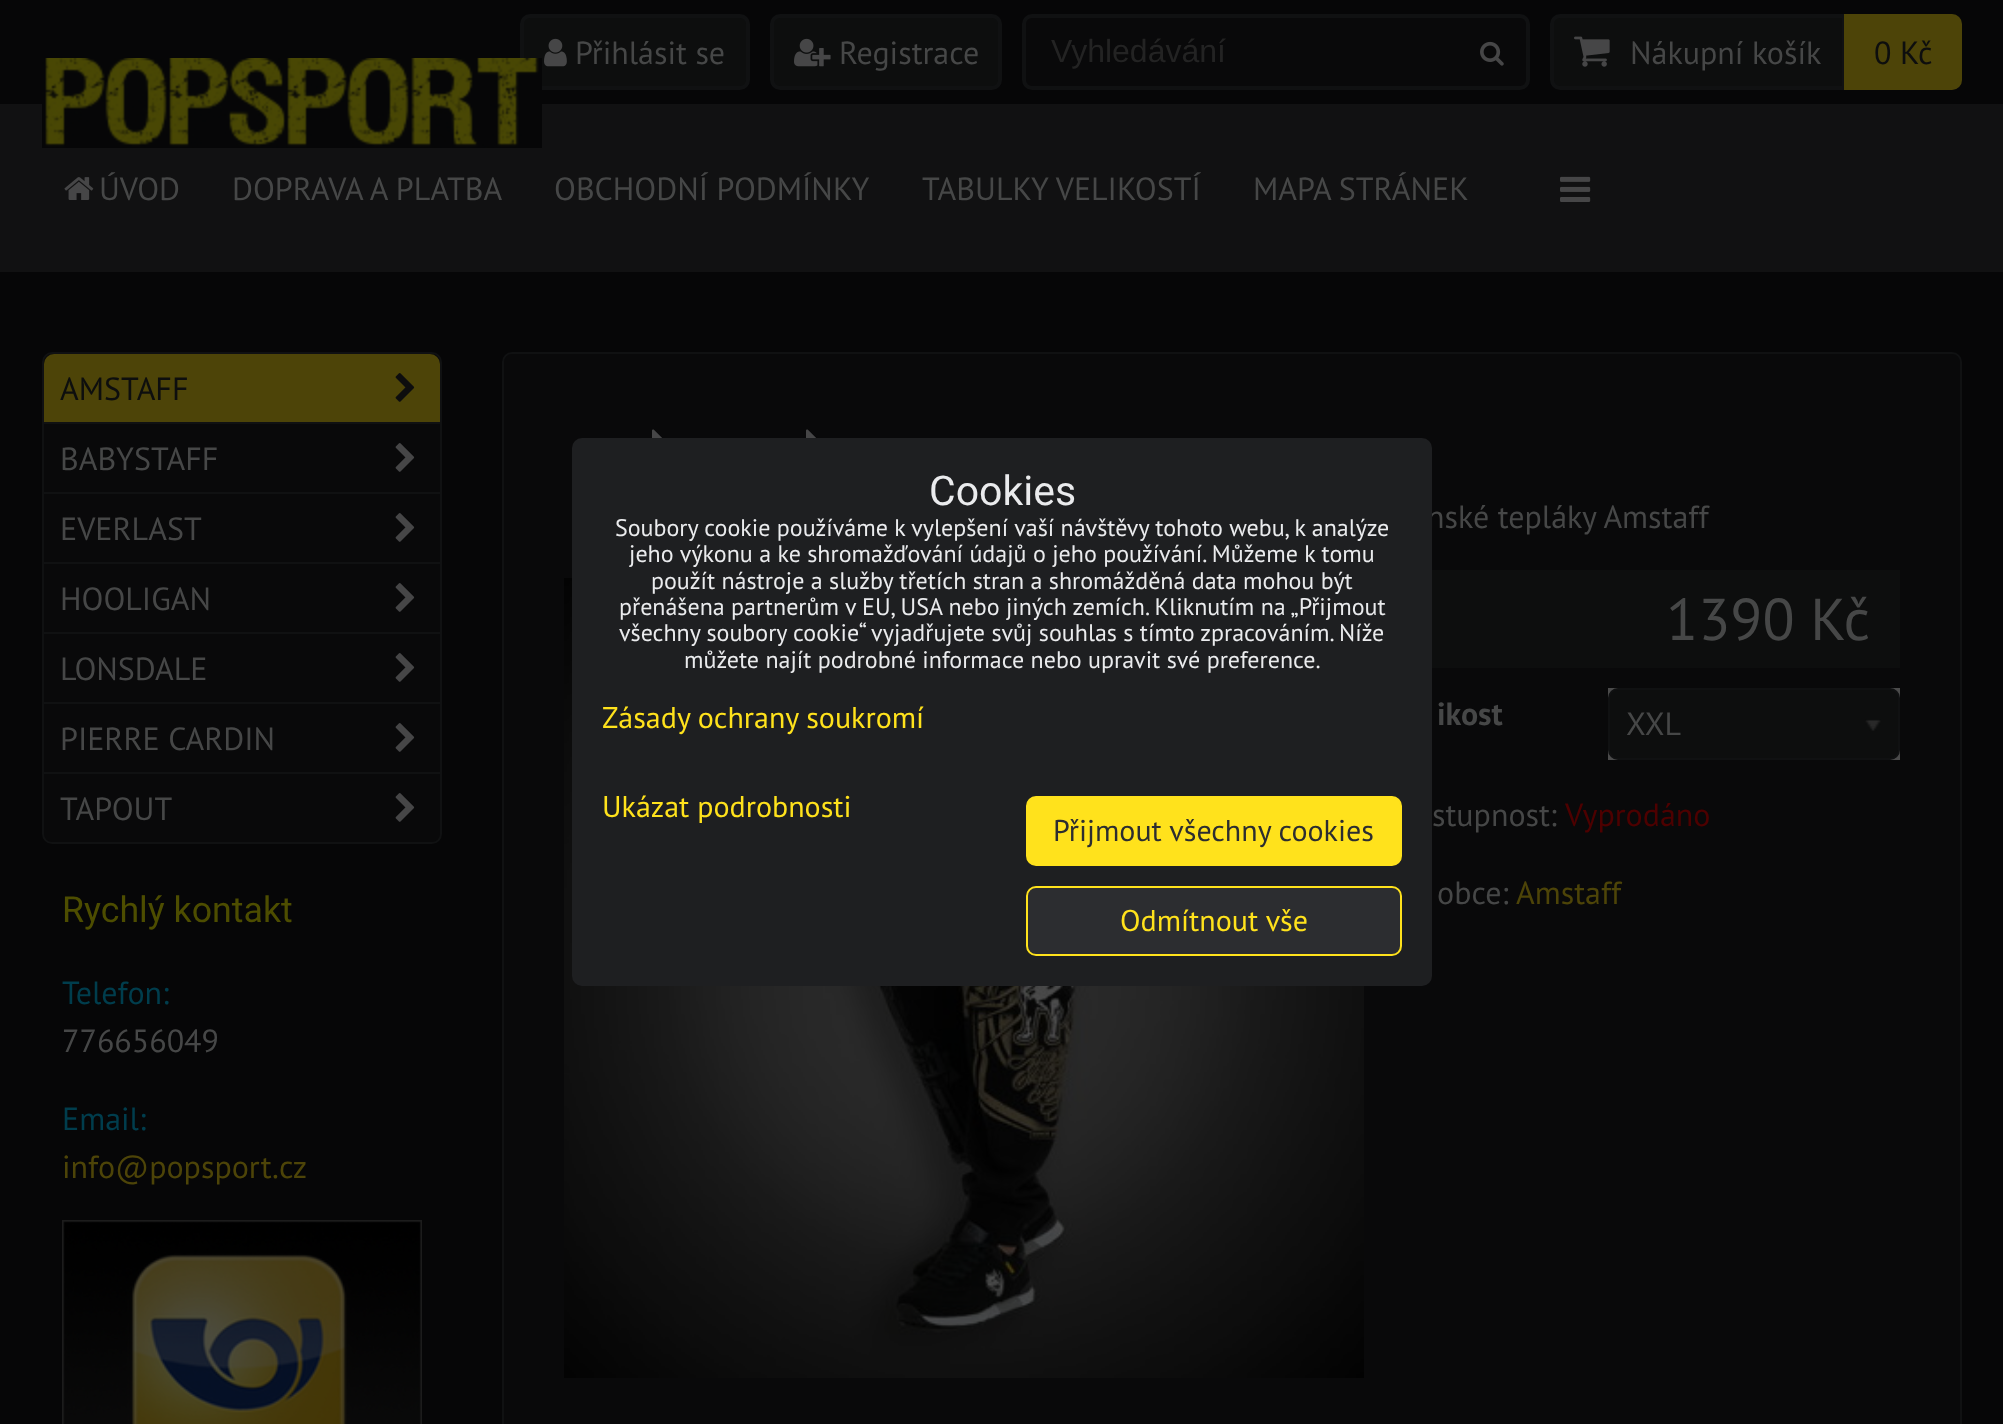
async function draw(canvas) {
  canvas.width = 2003;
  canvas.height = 1424;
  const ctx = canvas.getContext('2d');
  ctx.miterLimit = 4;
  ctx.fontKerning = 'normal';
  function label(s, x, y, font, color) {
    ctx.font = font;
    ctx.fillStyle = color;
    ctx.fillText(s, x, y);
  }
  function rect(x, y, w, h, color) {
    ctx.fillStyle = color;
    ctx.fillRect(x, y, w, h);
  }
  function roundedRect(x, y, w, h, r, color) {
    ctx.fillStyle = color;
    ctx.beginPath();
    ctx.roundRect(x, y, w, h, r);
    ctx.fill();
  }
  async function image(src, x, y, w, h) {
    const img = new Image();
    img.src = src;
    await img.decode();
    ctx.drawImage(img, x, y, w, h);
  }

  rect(0, 0, 2003, 1424, '#060607');
  ctx.fillStyle = '#0d0e0e';
  ctx.beginPath();
  ctx.roundRect(522, 16, 226, 72, 8);
  ctx.fill();
  ctx.strokeStyle = '#101112';
  ctx.lineWidth = 4;
  ctx.stroke();
  await image('assets/img1.png', 544, 38, 23, 29);
  label('Přihlásit se', 575, 64, '32px PT Sans', '#464747');
  ctx.fillStyle = '#0d0e0e';
  ctx.beginPath();
  ctx.roundRect(772, 16, 228, 72, 8);
  ctx.fill();
  ctx.stroke();
  await image('assets/img2.png', 794, 38, 37, 29);
  label('Registrace', 839, 64, '32px PT Sans', '#464747');
  ctx.fillStyle = '#09090a';
  ctx.beginPath();
  ctx.roundRect(1024, 16, 504, 72, 8);
  ctx.fill();
  ctx.stroke();
  label('Vyhledávání', 1051, 62, '32px Liberation Sans', '#232323');
  await image('assets/img3.png', 1480, 41, 24, 25);
  ctx.fillStyle = '#0d0e0e';
  ctx.beginPath();
  ctx.roundRect(1552, 16, 408, 72, 8);
  ctx.fill();
  ctx.stroke();
  await image('assets/img4.png', 1574, 36, 36, 31);
  label('Nákupní košík', 1630, 64, '32px PT Sans', '#464747');
  ctx.fillStyle = '#4d4408';
  ctx.beginPath();
  ctx.roundRect(1842, 14, 120, 76, [0, 10, 10, 0]);
  ctx.fill();
  rect(1842, 14, 2, 76, '#101112');
  label('0 Kč', 1874, 64, '32px PT Sans', '#0d0e0e');
  rect(0, 104, 2003, 168, '#111112');
  await image('assets/img5.png', 42, 58, 500, 90);
  await image('assets/img6.png', 64, 177, 30, 23);
  label('ÚVOD', 99, 200, '32px PT Sans', '#464747');
  label('DOPRAVA A PLATBA', 232, 200, '32px PT Sans', '#464747');
  label('OBCHODNÍ PODMÍNKY', 554, 200, '32px PT Sans', '#464747');
  label('TABULKY VELIKOSTÍ', 922, 200, '32px PT Sans', '#464747');
  label('MAPA STRÁNEK', 1253, 200, '32px PT Sans', '#464747');
  await image('assets/img7.png', 1560, 176, 31, 26);
  ctx.fillStyle = '#09090a';
  ctx.beginPath();
  ctx.roundRect(43, 353, 398, 490, 9);
  ctx.fill();
  ctx.lineWidth = 2;
  ctx.stroke();
  ctx.fillStyle = '#4d4408';
  ctx.beginPath();
  ctx.roundRect(44, 354, 396, 70, [10, 10, 0, 0]);
  ctx.fill();
  rect(44, 422, 396, 2, '#101112');
  label('AMSTAFF', 60, 400, '32px PT Sans', '#0d0e0e');
  await image('assets/img8.png', 395, 373, 20, 29);
  rect(44, 492, 396, 2, '#101112');
  label('BABYSTAFF', 60, 470, '32px PT Sans', '#464747');
  await image('assets/img9.png', 395, 443, 20, 29);
  rect(44, 562, 396, 2, '#101112');
  label('EVERLAST', 60, 540, '32px PT Sans', '#464747');
  await image('assets/img9.png', 395, 513, 20, 29);
  rect(44, 632, 396, 2, '#101112');
  label('HOOLIGAN', 60, 610, '32px PT Sans', '#464747');
  await image('assets/img9.png', 395, 583, 20, 29);
  rect(44, 702, 396, 2, '#101112');
  label('LONSDALE', 60, 680, '32px PT Sans', '#464747');
  await image('assets/img9.png', 395, 653, 20, 29);
  rect(44, 772, 396, 2, '#101112');
  label('PIERRE CARDIN', 60, 750, '32px PT Sans', '#464747');
  await image('assets/img9.png', 395, 723, 20, 29);
  label('TAPOUT', 60, 820, '32px PT Sans', '#464747');
  await image('assets/img9.png', 395, 793, 20, 29);
  label('Rychlý kontakt', 62, 922, '35.75px Roboto', '#4d4d00');
  label('Telefon:', 62, 1004, '32px PT Sans', '#003d4d');
  label('776656049', 62, 1052, '32px PT Sans', '#464747');
  label('Email:', 62, 1130, '32px PT Sans', '#003d4d');
  label('info@popsport.cz', 62, 1178, '32px PT Sans', '#4d4408');
  await image('assets/img10.png', 62, 1220, 360, 204);
  ctx.fillStyle = '#09090a';
  ctx.beginPath();
  ctx.roundRect(503, 353, 1458, 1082, 9);
  ctx.fill();
  ctx.stroke();
  await image('assets/img11.png', 652, 429, 10, 9);
  await image('assets/img11.png', 806, 429, 10, 9);
  await image('assets/img12.png', 564, 578, 800, 800);
  label('nské tepláky Amstaff', 1427, 528, '32px PT Sans', '#464747');
  rect(1432, 570, 468, 98, '#0d0e0e');
  label('1390 Kč', 1666, 640, '59px PT Sans', '#464747');
  label('ikost', 1437, 725, 'bold 32px PT Sans', '#464747');
  rect(1608, 688, 292, 72, '#4b4b4b');
  ctx.fillStyle = '#0d0e0e';
  ctx.beginPath();
  ctx.roundRect(1609, 689, 290, 70, 9);
  ctx.fill();
  ctx.stroke();
  label('XXL', 1626, 735, '32px PT Sans', '#464747');
  await image('assets/img13.png', 1865, 719, 16, 12);
  label('stupnost:', 1432, 826, '32px PT Sans', '#464747');
  label('Vyprodáno', 1565, 826, '32px PT Sans', '#4d0000');
  label('obce:', 1437, 904, '32px PT Sans', '#464747');
  label('Amstaff', 1516, 904, '32px PT Sans', '#4d4408');
  roundedRect(572, 438, 860, 548, 10, '#1e1f21');
  label('Cookies', 929, 505, '41px Roboto', '#eaebed');
  label('Soubory cookie používáme k vylepšení vaší návštěvy tohoto webu, k analýze', 615, 536, '24px PT Sans', '#eaebed');
  label('jeho výkonu a ke shromažďování údajů o jeho používání. Můžeme k tomu', 629, 562, '24px PT Sans', '#eaebed');
  label('použít nástroje a služby třetích stran a shromážděná data mohou být', 651, 589, '24px PT Sans', '#eaebed');
  label('přenášena partnerům v EU, USA nebo jiných zemích. Kliknutím na „Přijmout', 619, 615, '24px PT Sans', '#eaebed');
  label('všechny soubory cookie“ vyjadřujete svůj souhlas s tímto zpracováním. Níže', 619, 641, '24px PT Sans', '#eaebed');
  label('můžete najít podrobné informace nebo upravit své preference.', 684, 668, '24px PT Sans', '#eaebed');
  label('Zásady ochrany soukromí', 602, 728, '30px PT Sans', '#ffe21c');
  label('Ukázat podrobnosti', 602, 817, '30px PT Sans', '#ffe21c');
  ctx.beginPath();
  ctx.roundRect(1027, 797, 374, 68, 9);
  ctx.fill();
  ctx.strokeStyle = '#ffe21c';
  ctx.stroke();
  label('Přijmout všechny cookies', 1053, 841, '30px PT Sans', '#2c2d30');
  ctx.beginPath();
  ctx.roundRect(1027, 887, 374, 68, 9);
  ctx.fill();
  ctx.stroke();
  label('Odmítnout vše', 1120, 931, '30px PT Sans', '#ffe21c');
}

draw(document.querySelector('canvas'));
